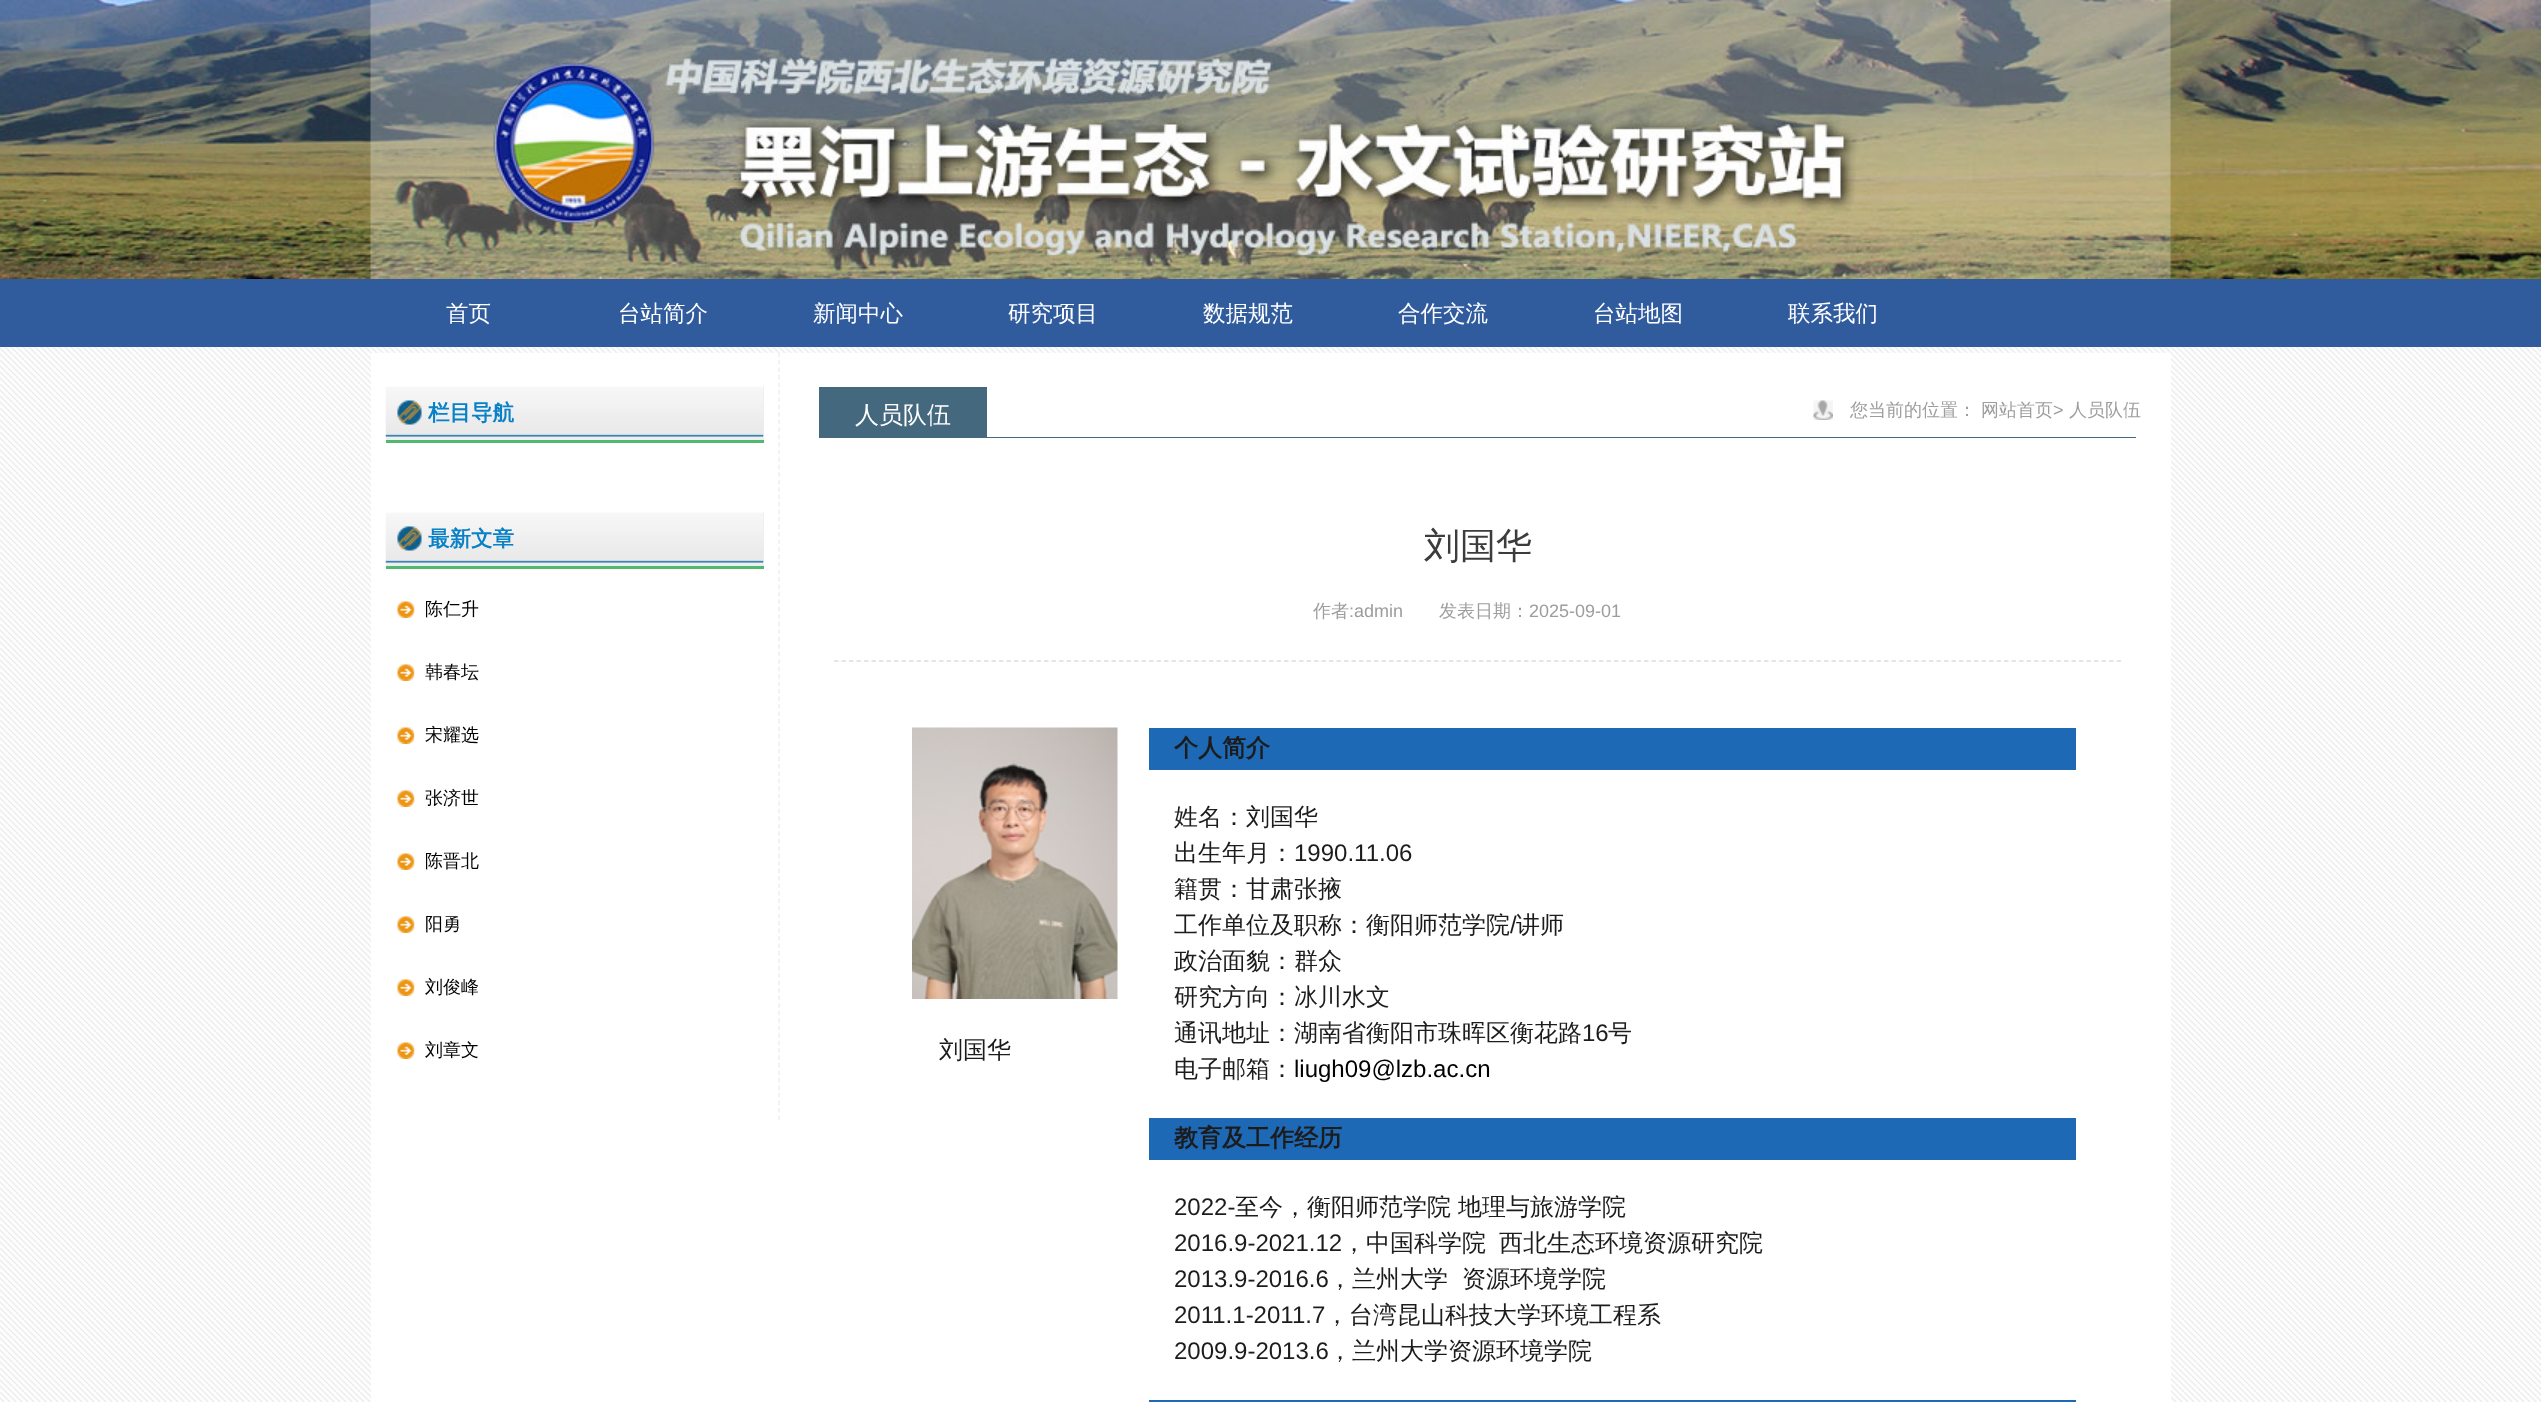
async function draw(canvas) {
  canvas.width = 2541;
  canvas.height = 1402;
  const ctx = canvas.getContext('2d');
  ctx.miterLimit = 4;
  ctx.fontKerning = 'normal';
  function label(s, x, y, font, color) {
    ctx.font = font;
    ctx.fillStyle = color;
    ctx.fillText(s, x, y);
  }
  function rect(x, y, w, h, color) {
    ctx.fillStyle = color;
    ctx.fillRect(x, y, w, h);
  }
  async function image(src, x, y, w, h) {
    const img = new Image();
    img.src = src;
    await img.decode();
    ctx.drawImage(img, x, y, w, h);
  }
  let path;

  rect(0, 0, 2541, 1402, '#fff');
  await image('assets/img1.png', 0, 347, 2541, 1055);
  await image('assets/img2.png', 0, 0, 2541, 279);
  rect(0, 279, 2541, 68, '#305c9e');
  label('首页', 446, 321, '500 22.5px WenQuanYi Zen Hei', '#fff');
  label('台站简介', 618, 321, '500 22.5px WenQuanYi Zen Hei', '#fff');
  label('新闻中心', 813, 321, '500 22.5px WenQuanYi Zen Hei', '#fff');
  label('研究项目', 1008, 321, '500 22.5px WenQuanYi Zen Hei', '#fff');
  label('数据规范', 1203, 321, '500 22.5px WenQuanYi Zen Hei', '#fff');
  label('合作交流', 1398, 321, '500 22.5px WenQuanYi Zen Hei', '#fff');
  label('台站地图', 1593, 321, '500 22.5px WenQuanYi Zen Hei', '#fff');
  label('联系我们', 1788, 321, '500 22.5px WenQuanYi Zen Hei', '#fff');
  rect(371, 353, 1800, 1049, '#fff');
  path = new Path2D('M779 352.5V1120.5');
  ctx.strokeStyle = '#eee';
  ctx.lineWidth = 1.5;
  ctx.setLineDash([4.5, 2.98]);
  ctx.stroke(path);
  rect(386, 386, 378, 54, '#eee');
  await image('assets/img3.png', 385, 386, 379, 51);
  rect(386, 440, 378, 3, '#4eb96f');
  await image('assets/img4.png', 397, 400, 25, 25);
  label('栏目导航', 428, 420, 'bold 21.5px WenQuanYi Zen Hei', '#0981c6');
  rect(386, 512, 378, 54, '#eee');
  await image('assets/img3.png', 385, 512, 379, 51);
  rect(386, 566, 378, 3, '#4eb96f');
  await image('assets/img4.png', 397, 526, 25, 25);
  label('最新文章', 428, 546, 'bold 21.5px WenQuanYi Zen Hei', '#0981c6');
  await image('assets/img5.png', 397, 601, 18, 17);
  label('陈仁升', 425, 615, '500 18px WenQuanYi Zen Hei', '#000');
  await image('assets/img5.png', 397, 664, 18, 17);
  label('韩春坛', 425, 678, '500 18px WenQuanYi Zen Hei', '#000');
  await image('assets/img5.png', 397, 727, 18, 17);
  label('宋耀选', 425, 741, '500 18px WenQuanYi Zen Hei', '#000');
  await image('assets/img5.png', 397, 790, 18, 17);
  label('张济世', 425, 804, '500 18px WenQuanYi Zen Hei', '#000');
  await image('assets/img5.png', 397, 853, 18, 17);
  label('陈晋北', 425, 867, '500 18px WenQuanYi Zen Hei', '#000');
  await image('assets/img5.png', 397, 916, 18, 17);
  label('阳勇', 425, 930, '500 18px WenQuanYi Zen Hei', '#000');
  await image('assets/img5.png', 397, 979, 18, 17);
  label('刘俊峰', 425, 993, '500 18px WenQuanYi Zen Hei', '#000');
  await image('assets/img5.png', 397, 1042, 18, 17);
  label('刘章文', 425, 1056, '500 18px WenQuanYi Zen Hei', '#000');
  rect(819, 437, 1317, 1, '#44687d');
  rect(819, 387, 168, 50, '#44687d');
  label('人员队伍', 855, 423, '500 24px WenQuanYi Zen Hei', '#fff');
  path = new Path2D('M834 661H2121');
  ctx.strokeStyle = '#ddd';
  ctx.setLineDash([4.5, 3]);
  ctx.stroke(path);
  label('刘国华', 1424, 558, '500 36px WenQuanYi Zen Hei', '#3c3c3c');
  label('作者', 1313, 617, '500 18px WenQuanYi Zen Hei', '#9e9d9d');
  label(':admin', 1349, 617, '18px Liberation Sans', '#9e9d9d');
  label('发表日期：', 1439, 617, '500 18px WenQuanYi Zen Hei', '#9e9d9d');
  label('2025-09-01', 1529, 617, '18px Liberation Sans', '#9e9d9d');
  await image('assets/img6.png', 912, 727, 206, 272);
  label('刘国华', 939, 1058, '500 24px WenQuanYi Zen Hei', '#1c1c1c');
  rect(1149, 728, 927, 42, '#1d69b6');
  label('个人简介', 1174, 756, 'bold 24px WenQuanYi Zen Hei', '#1c1c1c');
  label('姓名：刘国华', 1174, 825, '500 24px WenQuanYi Zen Hei', '#1c1c1c');
  label('出生年月：', 1174, 861, '500 24px WenQuanYi Zen Hei', '#1c1c1c');
  label('1990.11.06', 1294, 861, '24px Liberation Sans', '#1c1c1c');
  label('籍贯：甘肃张掖', 1174, 897, '500 24px WenQuanYi Zen Hei', '#1c1c1c');
  label('工作单位及职称：衡阳师范学院', 1174, 933, '500 24px WenQuanYi Zen Hei', '#1c1c1c');
  label('/', 1510, 933, '24px Liberation Sans', '#1c1c1c');
  label('讲师', 1516, 933, '500 24px WenQuanYi Zen Hei', '#1c1c1c');
  label('政治面貌：群众', 1174, 969, '500 24px WenQuanYi Zen Hei', '#1c1c1c');
  label('研究方向：冰川水文', 1174, 1005, '500 24px WenQuanYi Zen Hei', '#1c1c1c');
  label('通讯地址：湖南省衡阳市珠晖区衡花路', 1174, 1041, '500 24px WenQuanYi Zen Hei', '#1c1c1c');
  label('16', 1582, 1041, '24px Liberation Sans', '#1c1c1c');
  label('号', 1608, 1041, '500 24px WenQuanYi Zen Hei', '#1c1c1c');
  label('电子邮箱：', 1174, 1077, '500 24px WenQuanYi Zen Hei', '#1c1c1c');
  label('liugh09@lzb.ac.cn', 1294, 1077, '24px Liberation Sans', '#000');
  rect(1149, 1118, 927, 42, '#1d69b6');
  label('教育及工作经历', 1174, 1146, 'bold 24px WenQuanYi Zen Hei', '#1c1c1c');
  label('2022-', 1174, 1215, '24px Liberation Sans', '#1c1c1c');
  label('至今，衡阳师范学院', 1235, 1215, '500 24px WenQuanYi Zen Hei', '#1c1c1c');
  label('地理与旅游学院', 1458, 1215, '500 24px WenQuanYi Zen Hei', '#1c1c1c');
  label('2016.9-2021.12', 1174, 1251, '24px Liberation Sans', '#1c1c1c');
  label('，中国科学院', 1342, 1251, '500 24px WenQuanYi Zen Hei', '#1c1c1c');
  label('西北生态环境资源研究院', 1499, 1251, '500 24px WenQuanYi Zen Hei', '#1c1c1c');
  label('2013.9-2016.6', 1174, 1287, '24px Liberation Sans', '#1c1c1c');
  label('，兰州大学', 1328, 1287, '500 24px WenQuanYi Zen Hei', '#1c1c1c');
  label('资源环境学院', 1462, 1287, '500 24px WenQuanYi Zen Hei', '#1c1c1c');
  label('2011.1-2011.7', 1174, 1323, '24px Liberation Sans', '#1c1c1c');
  label('，台湾昆山科技大学环境工程系', 1325, 1323, '500 24px WenQuanYi Zen Hei', '#1c1c1c');
  label('2009.9-2013.6', 1174, 1359, '24px Liberation Sans', '#1c1c1c');
  label('，兰州大学资源环境学院', 1328, 1359, '500 24px WenQuanYi Zen Hei', '#1c1c1c');
  rect(1149, 1400, 927, 2, '#1d69b6');
  await image('assets/img7.png', 1813, 400, 20, 20);
  label('您当前的位置：', 1850, 416, '500 18px WenQuanYi Zen Hei', '#9e9d9d');
  label('网站首页', 1981, 416, '500 18px WenQuanYi Zen Hei', '#9e9d9d');
  label('>', 2053, 416, '18px Liberation Sans', '#9e9d9d');
  label('人员队伍', 2069, 416, '500 18px WenQuanYi Zen Hei', '#9e9d9d');
}

draw(document.querySelector('canvas'));
